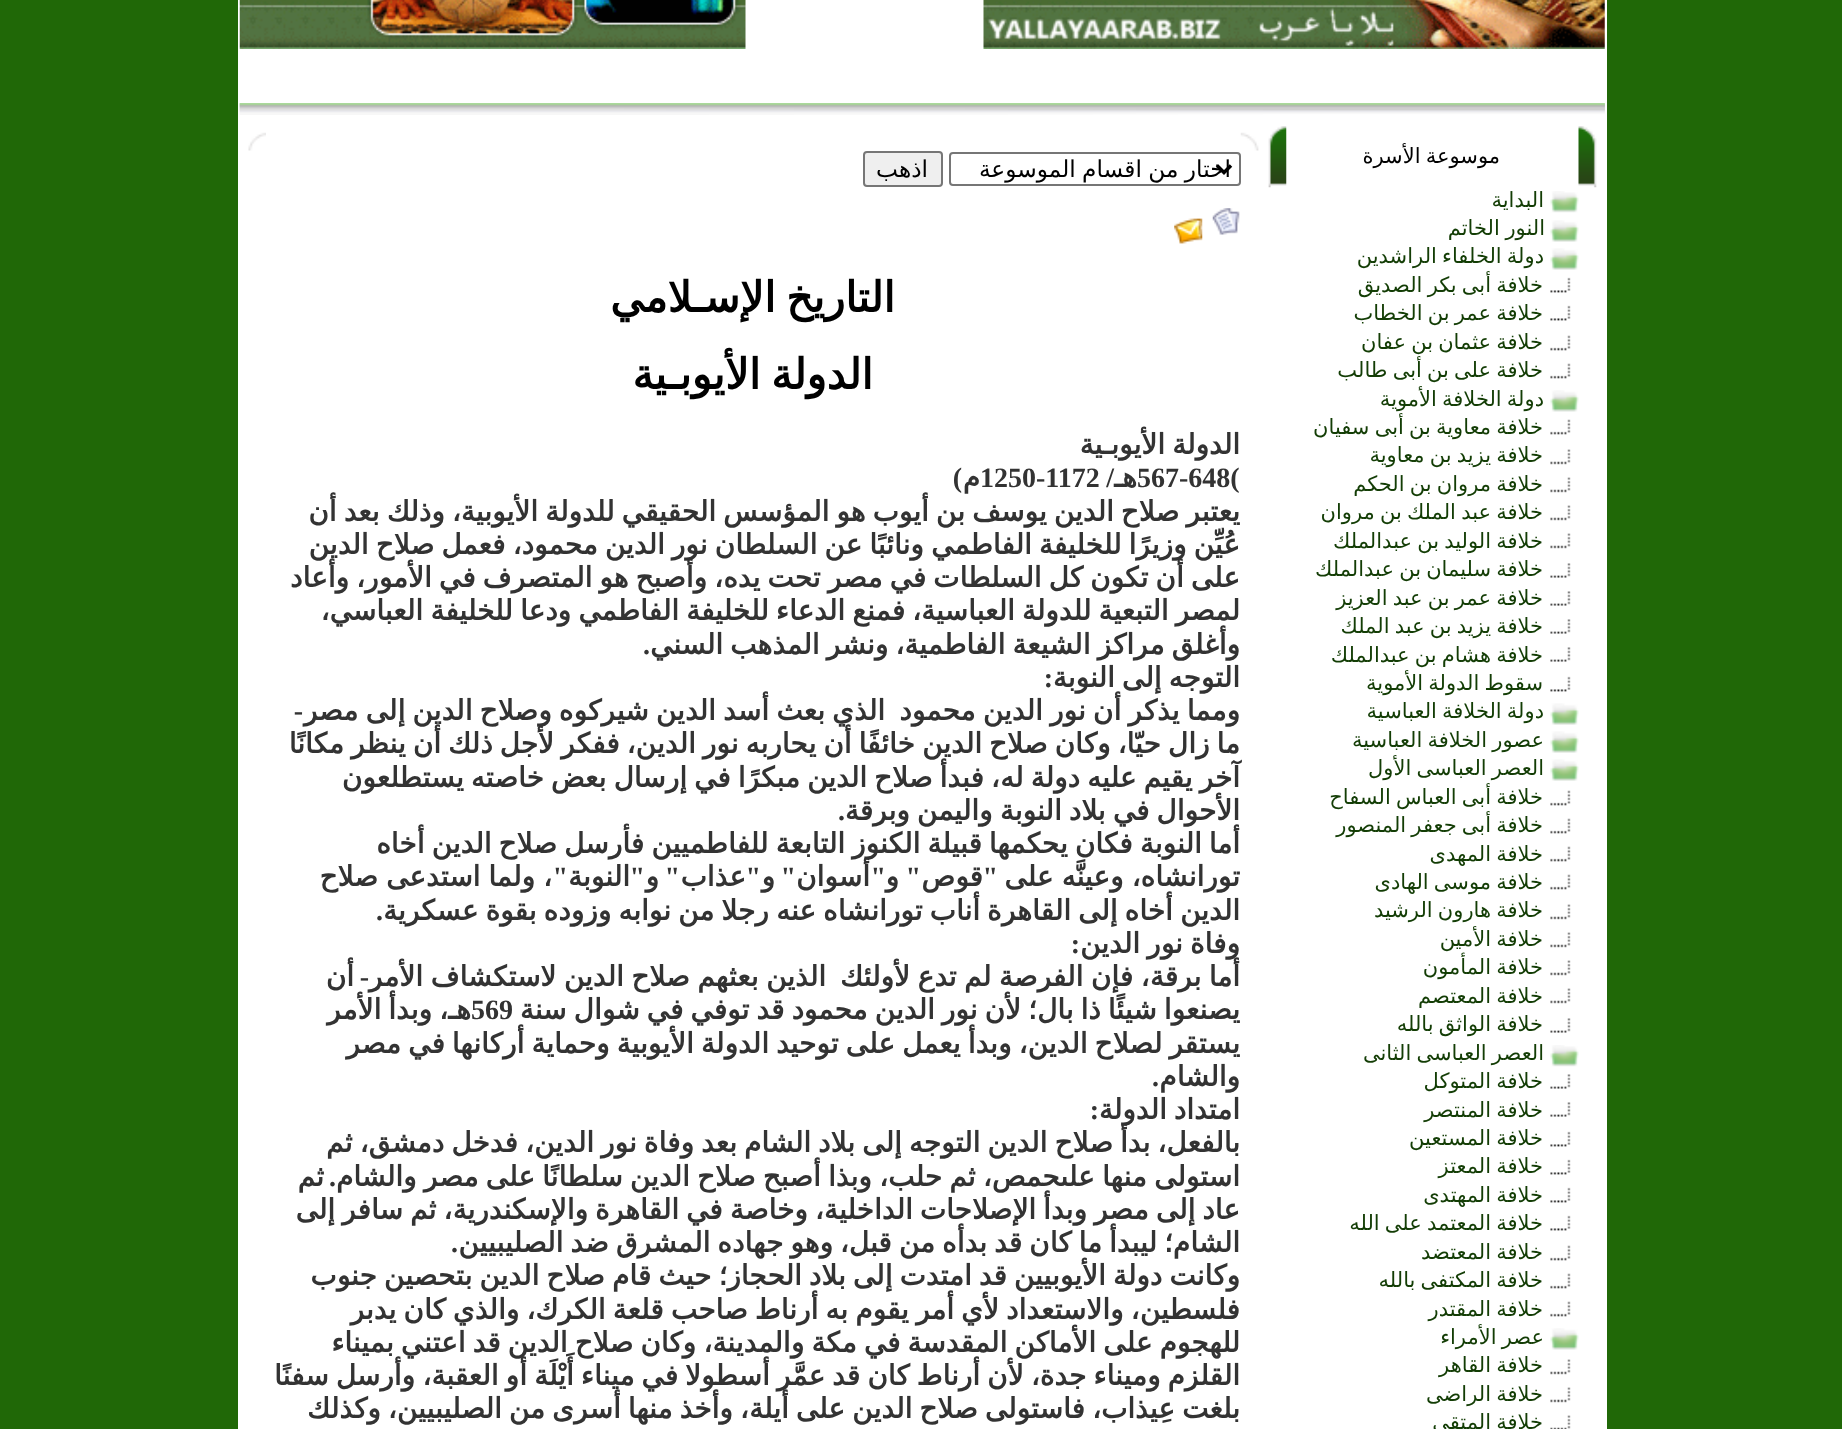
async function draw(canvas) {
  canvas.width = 1842;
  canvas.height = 1429;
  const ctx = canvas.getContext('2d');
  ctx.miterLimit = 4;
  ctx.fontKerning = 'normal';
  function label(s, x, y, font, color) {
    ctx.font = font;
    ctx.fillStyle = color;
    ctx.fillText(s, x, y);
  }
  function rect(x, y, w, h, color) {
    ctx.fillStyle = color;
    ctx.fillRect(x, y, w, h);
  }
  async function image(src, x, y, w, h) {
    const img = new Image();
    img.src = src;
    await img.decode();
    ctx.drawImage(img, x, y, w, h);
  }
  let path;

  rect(0, 0, 1842, 1429, '#206807');
  rect(238, 0, 1369, 1429, '#fff');
  await image('assets/img1.png', 983, 0, 622, 49);
  await image('assets/img2.png', 239, 0, 507, 49);
  await image('assets/img3.png', 239, 103, 1366, 12);
  await image('assets/img4.png', 239, 103, 1366, 12);
  await image('assets/img5.png', 1578, 126, 19, 62);
  ctx.wordSpacing = '-1.5px';
  ctx.direction = 'rtl';
  label('موسوعة الأسرة', 1500, 163, '21px DejaVu Sans', '#000');
  await image('assets/img6.png', 1268, 126, 19, 62);
  await image('assets/img7.png', 1550, 191, 29, 22);
  ctx.wordSpacing = '0px';
  label('البداية', 1544, 207, '21px DejaVu Sans', '#133d05');
  await image('assets/img8.png', 1550, 220, 29, 22);
  ctx.wordSpacing = '-1px';
  label('النور الخاتم', 1545, 235, '21px DejaVu Sans', '#133d05');
  await image('assets/img8.png', 1550, 248, 29, 22);
  ctx.wordSpacing = '-1.5px';
  label('دولة الخلفاء الراشدين', 1544, 263, '21px DejaVu Sans', '#133d05');
  await image('assets/img9.png', 1550, 277, 21, 16);
  label('خلافة أبى بكر الصديق', 1543, 292, '21px DejaVu Sans', '#133d05');
  await image('assets/img9.png', 1550, 305, 21, 16);
  label('خلافة عمر بن الخطاب', 1543, 320, '21px DejaVu Sans', '#133d05');
  await image('assets/img10.png', 1550, 335, 21, 16);
  label('خلافة عثمان بن عفان', 1543, 349, '21px DejaVu Sans', '#133d05');
  await image('assets/img10.png', 1550, 363, 21, 16);
  label('خلافة على بن أبى طالب', 1543, 377, '21px DejaVu Sans', '#133d05');
  await image('assets/img11.png', 1550, 390, 29, 22);
  label('دولة الخلافة الأموية', 1544, 406, '21px DejaVu Sans', '#133d05');
  await image('assets/img10.png', 1550, 419, 21, 16);
  label('خلافة معاوية بن أبى سفيان', 1543, 434, '21px DejaVu Sans', '#133d05');
  await image('assets/img12.png', 1550, 449, 21, 16);
  label('خلافة يزيد بن معاوية', 1543, 462, '21px DejaVu Sans', '#133d05');
  await image('assets/img12.png', 1550, 477, 21, 16);
  label('خلافة مروان بن الحكم', 1543, 491, '21px DejaVu Sans', '#133d05');
  await image('assets/img12.png', 1550, 505, 21, 16);
  label('خلافة عبد الملك بن مروان', 1543, 519, '21px DejaVu Sans', '#133d05');
  await image('assets/img12.png', 1550, 533, 21, 16);
  label('خلافة الوليد بن عبدالملك', 1543, 548, '21px DejaVu Sans', '#133d05');
  await image('assets/img13.png', 1550, 563, 21, 15);
  label('خلافة سليمان بن عبدالملك', 1543, 576, '21px DejaVu Sans', '#133d05');
  await image('assets/img13.png', 1550, 591, 21, 15);
  label('خلافة عمر بن عبد العزيز', 1543, 605, '21px DejaVu Sans', '#133d05');
  await image('assets/img13.png', 1550, 619, 21, 15);
  label('خلافة يزيد بن عبد الملك', 1543, 633, '21px DejaVu Sans', '#133d05');
  await image('assets/img13.png', 1550, 647, 21, 15);
  label('خلافة هشام بن عبدالملك', 1543, 662, '21px DejaVu Sans', '#133d05');
  await image('assets/img9.png', 1550, 676, 21, 16);
  label('سقوط الدولة الأموية', 1543, 690, '21px DejaVu Sans', '#133d05');
  await image('assets/img8.png', 1550, 703, 29, 22);
  label('دولة الخلافة العباسية', 1544, 718, '21px DejaVu Sans', '#133d05');
  await image('assets/img8.png', 1550, 731, 29, 22);
  label('عصور الخلافة العباسية', 1544, 747, '21px DejaVu Sans', '#133d05');
  await image('assets/img8.png', 1550, 759, 29, 22);
  label('العصر العباسى الأول', 1544, 775, '21px DejaVu Sans', '#133d05');
  await image('assets/img10.png', 1550, 790, 21, 16);
  label('خلافة أبى العباس السفاح', 1543, 804, '21px DejaVu Sans', '#133d05');
  await image('assets/img10.png', 1550, 818, 21, 16);
  label('خلافة أبى جعفر المنصور', 1543, 832, '21px DejaVu Sans', '#133d05');
  await image('assets/img10.png', 1550, 846, 21, 16);
  label('خلافة المهدى', 1543, 861, '21px DejaVu Sans', '#133d05');
  await image('assets/img10.png', 1550, 874, 21, 16);
  label('خلافة موسى الهادى', 1543, 889, '21px DejaVu Sans', '#133d05');
  await image('assets/img12.png', 1550, 904, 21, 16);
  label('خلافة هارون الرشيد', 1543, 917, '21px DejaVu Sans', '#133d05');
  await image('assets/img12.png', 1550, 932, 21, 16);
  label('خلافة الأمين', 1543, 946, '21px DejaVu Sans', '#133d05');
  await image('assets/img12.png', 1550, 960, 21, 16);
  label('خلافة المأمون', 1543, 974, '21px DejaVu Sans', '#133d05');
  await image('assets/img12.png', 1550, 988, 21, 16);
  label('خلافة المعتصم', 1543, 1003, '21px DejaVu Sans', '#133d05');
  await image('assets/img13.png', 1550, 1018, 21, 15);
  label('خلافة الواثق بالله', 1543, 1031, '21px DejaVu Sans', '#133d05');
  await image('assets/img7.png', 1550, 1045, 29, 22);
  label('العصر العباسى الثانى', 1544, 1060, '21px DejaVu Sans', '#133d05');
  await image('assets/img13.png', 1550, 1074, 21, 15);
  label('خلافة المتوكل', 1543, 1088, '21px DejaVu Sans', '#133d05');
  await image('assets/img13.png', 1550, 1102, 21, 15);
  label('خلافة المنتصر', 1543, 1117, '21px DejaVu Sans', '#133d05');
  await image('assets/img9.png', 1550, 1131, 21, 16);
  label('خلافة المستعين', 1543, 1145, '21px DejaVu Sans', '#133d05');
  await image('assets/img9.png', 1550, 1159, 21, 16);
  label('خلافة المعتز', 1543, 1173, '21px DejaVu Sans', '#133d05');
  await image('assets/img9.png', 1550, 1187, 21, 16);
  label('خلافة المهتدى', 1543, 1202, '21px DejaVu Sans', '#133d05');
  await image('assets/img9.png', 1550, 1215, 21, 16);
  label('خلافة المعتمد على الله', 1543, 1230, '21px DejaVu Sans', '#133d05');
  await image('assets/img10.png', 1550, 1245, 21, 16);
  label('خلافة المعتضد', 1543, 1259, '21px DejaVu Sans', '#133d05');
  await image('assets/img10.png', 1550, 1273, 21, 16);
  label('خلافة المكتفى بالله', 1543, 1287, '21px DejaVu Sans', '#133d05');
  await image('assets/img10.png', 1550, 1301, 21, 16);
  label('خلافة المقتدر', 1543, 1316, '21px DejaVu Sans', '#133d05');
  await image('assets/img11.png', 1550, 1328, 29, 22);
  label('عصر الأمراء', 1544, 1344, '21px DejaVu Sans', '#133d05');
  await image('assets/img12.png', 1550, 1359, 21, 16);
  label('خلافة القاهر', 1543, 1372, '21px DejaVu Sans', '#133d05');
  await image('assets/img12.png', 1550, 1387, 21, 16);
  label('خلافة الراضى', 1543, 1401, '21px DejaVu Sans', '#133d05');
  await image('assets/img14.png', 1550, 1415, 21, 14);
  label('خلافة المتقى', 1543, 1429, '21px DejaVu Sans', '#133d05');
  await image('assets/img15.png', 1240, 132, 19, 19);
  await image('assets/img16.png', 248, 132, 18, 19);
  ctx.beginPath();
  ctx.roundRect(950, 153, 290, 32, 3);
  ctx.strokeStyle = '#767676';
  ctx.lineWidth = 2;
  ctx.stroke();
  path = new Path2D('M1217 165.5L1224 172.5L1231 165.5');
  ctx.strokeStyle = '#000';
  ctx.lineWidth = 3.5;
  ctx.stroke(path);
  ctx.wordSpacing = '-1px';
  label('اختار من اقسام الموسوعة', 1231, 177, '23.25px DejaVu Sans', '#000');
  ctx.fillStyle = '#efefef';
  ctx.beginPath();
  ctx.roundRect(864, 152, 78, 34, 3);
  ctx.fill();
  ctx.strokeStyle = '#767676';
  ctx.lineWidth = 2;
  ctx.stroke();
  ctx.wordSpacing = '0px';
  label('اذهب', 928, 177, '23.25px DejaVu Sans', '#000');
  await image('assets/img17.png', 1212, 208, 28, 27);
  await image('assets/img18.png', 1174, 218, 29, 26);
  ctx.wordSpacing = '-3px';
  label('التاريخ الإسـلامي', 895, 312, 'bold 42px DejaVu Sans', '#000');
  label('الدولة الأيوبـية', 873, 389, 'bold 42px DejaVu Sans', '#000');
  ctx.wordSpacing = '-1.9px';
  label('الدولة الأيوبـية', 1240, 454, 'bold 28px DejaVu Sans', '#333');
  ctx.wordSpacing = '0px';
  ctx.direction = 'ltr';
  label('567-648(', 1137, 487, 'bold 28px Liberation Serif', '#333');
  ctx.direction = 'rtl';
  label('/', 1114, 487, 'bold 28px Liberation Serif', '#333');
  label('هـ', 1137, 487, 'bold 28px DejaVu Sans', '#333');
  ctx.direction = 'ltr';
  label('1250-1172', 980, 487, 'bold 28px Liberation Serif', '#333');
  ctx.direction = 'rtl';
  label('م', 980, 487, 'bold 28px DejaVu Sans', '#333');
  label(')', 962, 487, 'bold 28px Liberation Serif', '#333');
  ctx.wordSpacing = '-1.9px';
  label('يعتبر صلاح الدين يوسف بن أيوب هو المؤسس الحقيقي للدولة الأيوبية، وذلك بعد أن', 1240, 521, 'bold 28px DejaVu Sans', '#333');
  label('عُيِّن وزيرًا للخليفة الفاطمي ونائبًا عن السلطان نور الدين محمود، فعمل صلاح الدين', 1240, 554, 'bold 28px DejaVu Sans', '#333');
  label('على أن تكون كل السلطات في مصر تحت يده، وأصبح هو المتصرف في الأمور، وأعاد', 1240, 587, 'bold 28px DejaVu Sans', '#333');
  label('لمصر التبعية للدولة العباسية، فمنع الدعاء للخليفة الفاطمي ودعا للخليفة العباسي،', 1240, 620, 'bold 28px DejaVu Sans', '#333');
  label('وأغلق مراكز الشيعة الفاطمية، ونشر المذهب السني', 1240, 654, 'bold 28px DejaVu Sans', '#333');
  ctx.wordSpacing = '0px';
  label('.', 650, 654, 'bold 28px Liberation Serif', '#333');
  ctx.wordSpacing = '-1.9px';
  label('التوجه إلى النوبة', 1240, 687, 'bold 28px DejaVu Sans', '#333');
  ctx.wordSpacing = '0px';
  label(':', 1053, 687, 'bold 28px Liberation Serif', '#333');
  ctx.wordSpacing = '-1.75px';
  label('ومما يذكر أن نور الدين محمود', 1240, 720, 'bold 28px DejaVu Sans', '#333');
  ctx.wordSpacing = '0px';
  label('-', 303, 720, 'bold 28px Liberation Serif', '#333');
  ctx.wordSpacing = '-1.75px';
  label('الذي بعث أسد الدين شيركوه وصلاح الدين إلى مصر', 885, 720, 'bold 28px DejaVu Sans', '#333');
  ctx.wordSpacing = '-1.9px';
  label('ما زال حيّا، وكان صلاح الدين خائفًا أن يحاربه نور الدين، ففكر لأجل ذلك أن ينظر مكانًا', 1240, 753, 'bold 28px DejaVu Sans', '#333');
  label('آخر يقيم عليه دولة له، فبدأ صلاح الدين مبكرًا في إرسال بعض خاصته يستطلعون', 1240, 787, 'bold 28px DejaVu Sans', '#333');
  label('الأحوال في بلاد النوبة واليمن وبرقة', 1240, 820, 'bold 28px DejaVu Sans', '#333');
  ctx.wordSpacing = '0px';
  label('.', 845, 820, 'bold 28px Liberation Serif', '#333');
  ctx.wordSpacing = '-1.9px';
  label('أما النوبة فكان يحكمها قبيلة الكنوز التابعة للفاطميين فأرسل صلاح الدين أخاه', 1240, 853, 'bold 28px DejaVu Sans', '#333');
  ctx.wordSpacing = '-1px';
  label('تورانشاه، وعينَّه على', 1240, 886, 'bold 28px DejaVu Sans', '#333');
  ctx.wordSpacing = '0px';
  label('"', 998, 886, 'bold 28px Liberation Serif', '#333');
  label('قوص', 983, 886, 'bold 28px DejaVu Sans', '#333');
  label('"', 921, 886, 'bold 28px Liberation Serif', '#333');
  label('و', 899, 886, 'bold 28px DejaVu Sans', '#333');
  label('"', 886, 886, 'bold 28px Liberation Serif', '#333');
  label('أسوان', 870, 886, 'bold 28px DejaVu Sans', '#333');
  label('"', 796, 886, 'bold 28px Liberation Serif', '#333');
  label('و', 775, 886, 'bold 28px DejaVu Sans', '#333');
  label('"', 761, 886, 'bold 28px Liberation Serif', '#333');
  label('عذاب', 746, 886, 'bold 28px DejaVu Sans', '#333');
  label('"', 680, 886, 'bold 28px Liberation Serif', '#333');
  label('و', 659, 886, 'bold 28px DejaVu Sans', '#333');
  label('"', 645, 886, 'bold 28px Liberation Serif', '#333');
  label('النوبة', 630, 886, 'bold 28px DejaVu Sans', '#333');
  label('"', 568, 886, 'bold 28px Liberation Serif', '#333');
  ctx.wordSpacing = '-1px';
  label('، ولما استدعى صلاح', 552, 886, 'bold 28px DejaVu Sans', '#333');
  ctx.wordSpacing = '-1.9px';
  label('الدين أخاه إلى القاهرة أناب تورانشاه عنه رجلا من نوابه وزوده بقوة عسكرية', 1240, 920, 'bold 28px DejaVu Sans', '#333');
  ctx.wordSpacing = '0px';
  label('.', 383, 920, 'bold 28px Liberation Serif', '#333');
  ctx.wordSpacing = '-1.9px';
  label('وفاة نور الدين', 1240, 953, 'bold 28px DejaVu Sans', '#333');
  ctx.wordSpacing = '0px';
  label(':', 1080, 953, 'bold 28px Liberation Serif', '#333');
  ctx.wordSpacing = '-1.5px';
  label('أما برقة، فإن الفرصة لم تدع لأولئك', 1240, 986, 'bold 28px DejaVu Sans', '#333');
  ctx.wordSpacing = '0px';
  label('-', 369, 986, 'bold 28px Liberation Serif', '#333');
  ctx.wordSpacing = '-1.5px';
  label('الذين بعثهم صلاح الدين لاستكشاف الأمر', 826, 986, 'bold 28px DejaVu Sans', '#333');
  ctx.wordSpacing = '0px';
  label('أن', 354, 986, 'bold 28px DejaVu Sans', '#333');
  ctx.wordSpacing = '-1.9px';
  label('يصنعوا شيئًا ذا بال؛ لأن نور الدين محمود قد توفي في شوال سنة', 1240, 1019, 'bold 28px DejaVu Sans', '#333');
  label('هـ، وبدأ الأمر', 471, 1019, 'bold 28px DejaVu Sans', '#333');
  ctx.wordSpacing = '0px';
  ctx.direction = 'ltr';
  label('569', 471, 1019, 'bold 28px Liberation Serif', '#333');
  ctx.wordSpacing = '-1.9px';
  ctx.direction = 'rtl';
  label('يستقر لصلاح الدين، وبدأ يعمل على توحيد الدولة الأيوبية وحماية أركانها في مصر', 1240, 1053, 'bold 28px DejaVu Sans', '#333');
  ctx.wordSpacing = '0px';
  label('والشام', 1240, 1086, 'bold 28px DejaVu Sans', '#333');
  label('.', 1159, 1086, 'bold 28px Liberation Serif', '#333');
  ctx.wordSpacing = '-1.9px';
  label('امتداد الدولة', 1240, 1119, 'bold 28px DejaVu Sans', '#333');
  ctx.wordSpacing = '0px';
  label(':', 1099, 1119, 'bold 28px Liberation Serif', '#333');
  ctx.wordSpacing = '-1.9px';
  label('بالفعل، بدأ صلاح الدين التوجه إلى بلاد الشام بعد وفاة نور الدين، فدخل دمشق، ثم', 1240, 1152, 'bold 28px DejaVu Sans', '#333');
  ctx.wordSpacing = '-1.75px';
  label('استولى منها علىحمص، ثم حلب، وبذا أصبح صلاح الدين سلطانًا على مصر والشام', 1240, 1186, 'bold 28px DejaVu Sans', '#333');
  ctx.wordSpacing = '0px';
  label('.', 336, 1186, 'bold 28px Liberation Serif', '#333');
  label('ثم', 324, 1186, 'bold 28px DejaVu Sans', '#333');
  ctx.wordSpacing = '-1.9px';
  label('عاد إلى مصر وبدأ الإصلاحات الداخلية، وخاصة في القاهرة والإسكندرية، ثم سافر إلى', 1240, 1219, 'bold 28px DejaVu Sans', '#333');
  label('الشام؛ ليبدأ ما كان قد بدأه من قبل،', 1240, 1252, 'bold 28px DejaVu Sans', '#333');
  label('وهو جهاده المشرق ضد الصليبيين', 833, 1252, 'bold 28px DejaVu Sans', '#333');
  ctx.wordSpacing = '0px';
  label('.', 458, 1252, 'bold 28px Liberation Serif', '#333');
  ctx.wordSpacing = '-1.9px';
  label('وكانت دولة الأيوبيين قد امتدت إلى بلاد الحجاز؛ حيث قام صلاح الدين بتحصين جنوب', 1240, 1285, 'bold 28px DejaVu Sans', '#333');
  label('فلسطين، والاستعداد', 1240, 1319, 'bold 28px DejaVu Sans', '#333');
  label('لأي أمر يقوم به أرناط صاحب قلعة الكرك، والذي كان يدبر', 999, 1319, 'bold 28px DejaVu Sans', '#333');
  label('للهجوم على الأماكن المقدسة في مكة والمدينة، وكان صلاح الدين قد اعتني بميناء', 1240, 1352, 'bold 28px DejaVu Sans', '#333');
  label('القلزم وميناء جدة، لأن أرناط كان قد عمَّر أسطولا في ميناء أَيْلَة أو العقبة، وأرسل سفنًا', 1240, 1385, 'bold 28px DejaVu Sans', '#333');
  label('بلغت عِيذاب، فاستولى صلاح الدين على أيلة، وأخذ منها أسرى من الصليبيين، وكذلك', 1240, 1418, 'bold 28px DejaVu Sans', '#333');
}

draw(document.querySelector('canvas'));
